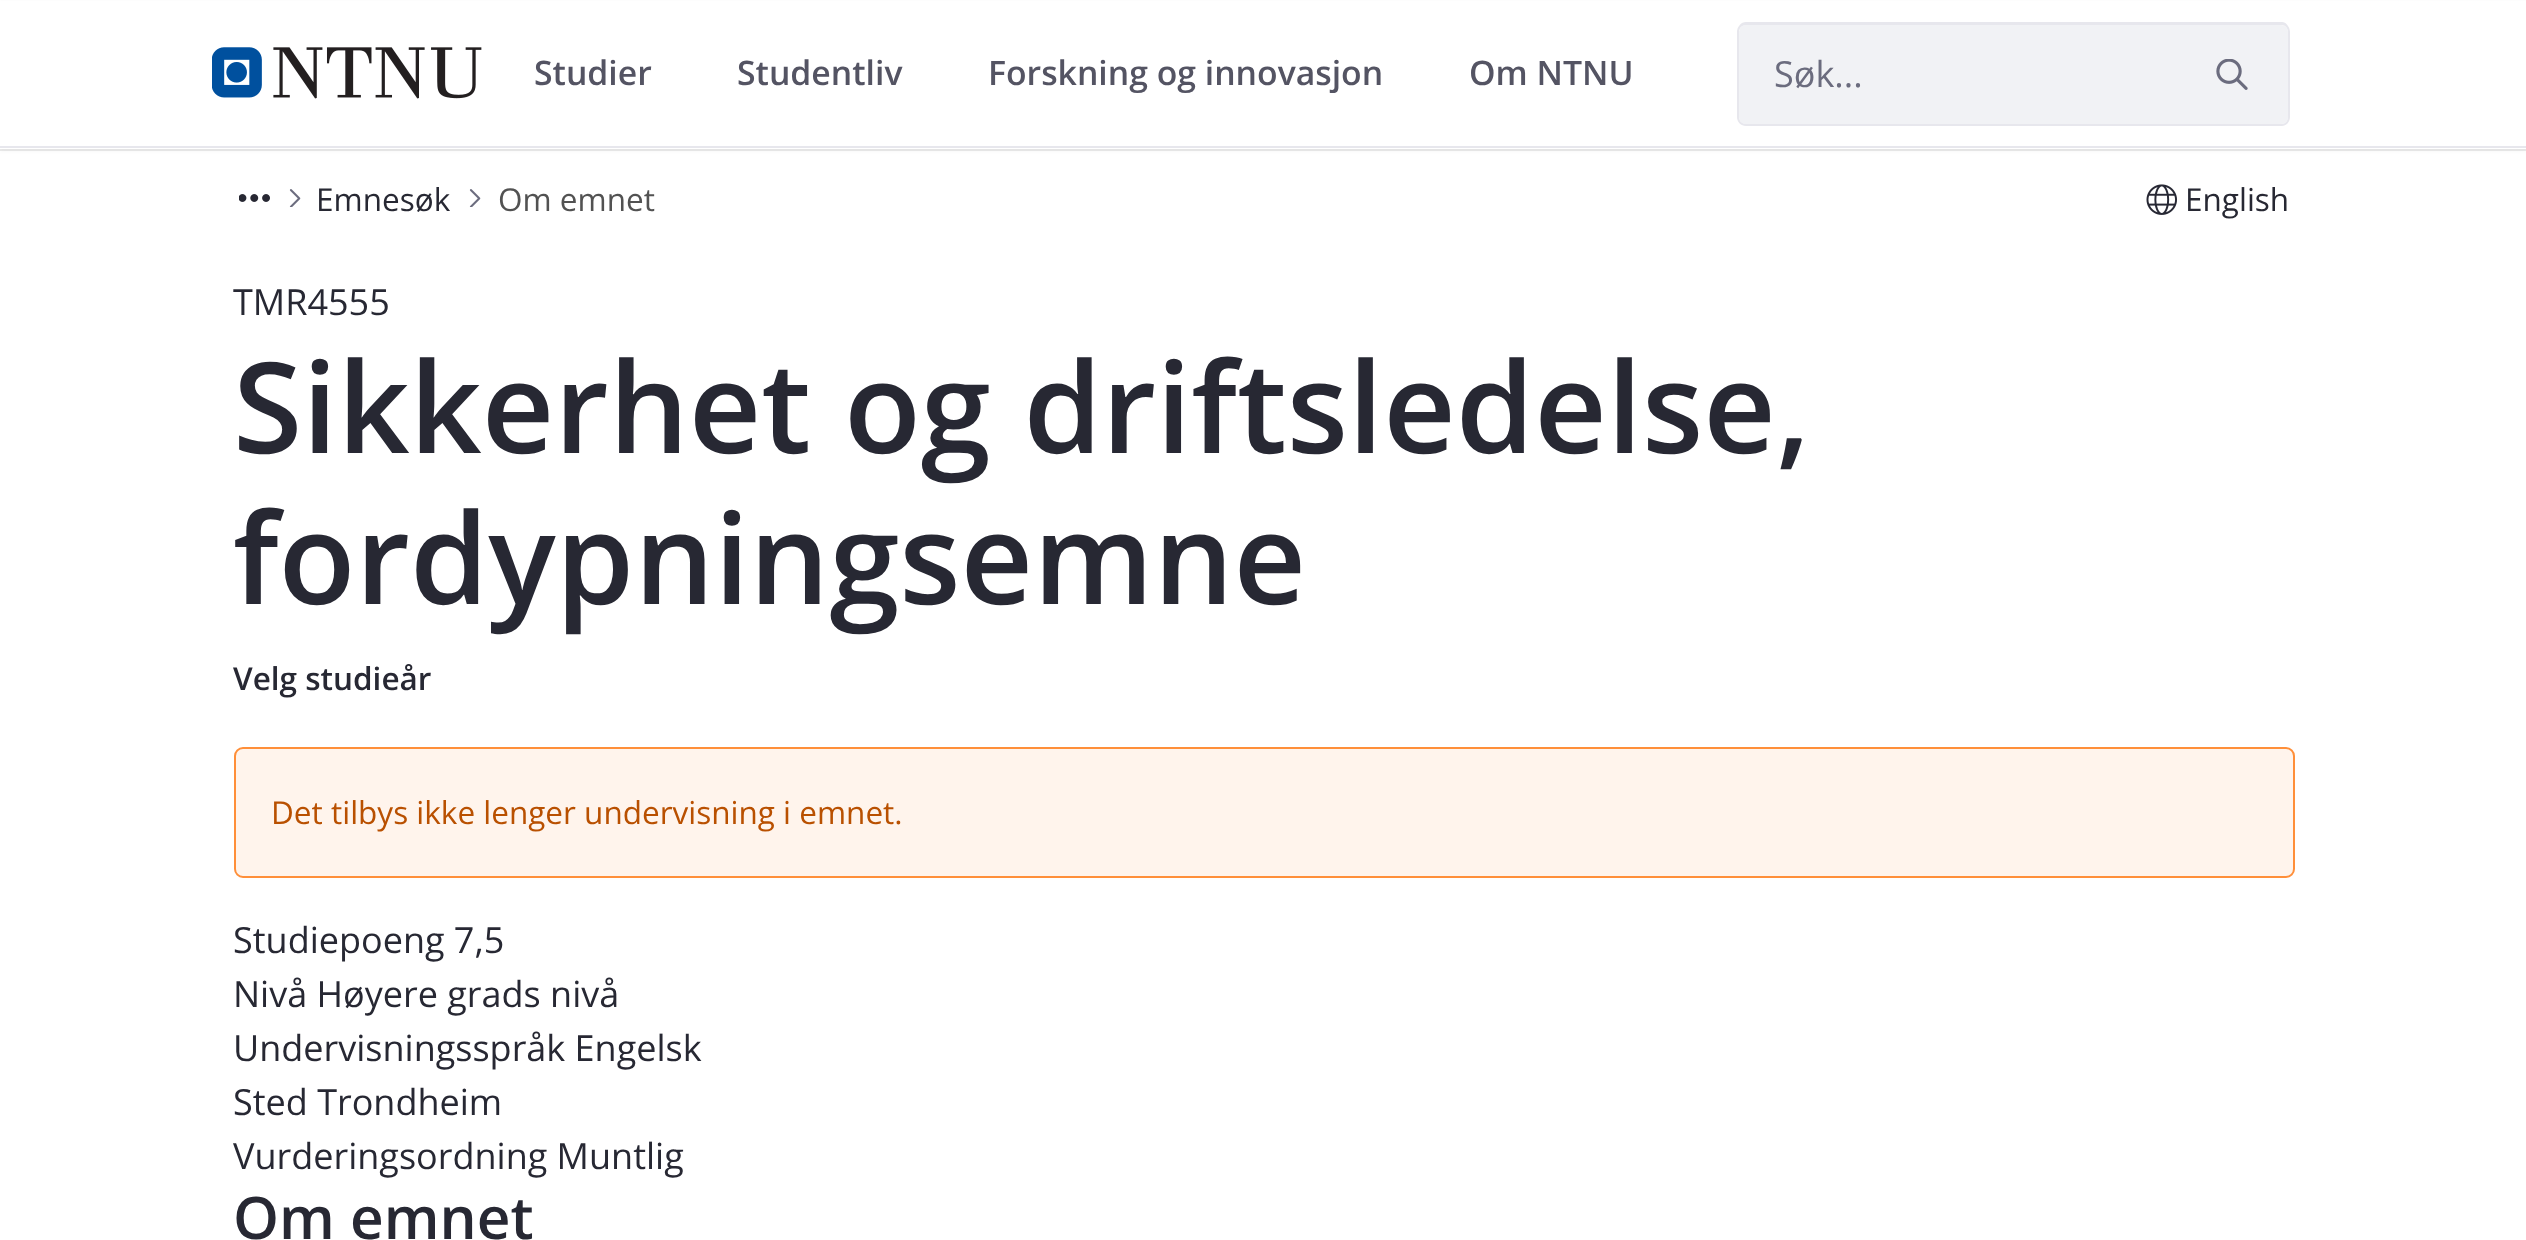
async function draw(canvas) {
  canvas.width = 2526;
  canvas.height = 1240;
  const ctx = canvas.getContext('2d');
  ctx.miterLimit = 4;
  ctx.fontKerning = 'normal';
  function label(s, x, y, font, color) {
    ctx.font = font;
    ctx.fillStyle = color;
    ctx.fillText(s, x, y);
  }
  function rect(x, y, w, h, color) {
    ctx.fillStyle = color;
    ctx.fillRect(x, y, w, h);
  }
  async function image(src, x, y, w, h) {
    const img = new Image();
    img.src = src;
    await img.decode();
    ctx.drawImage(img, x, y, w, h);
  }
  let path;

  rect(0, 0, 2526, 1240, '#fff');
  ctx.fillStyle = '#0000000a';
  ctx.filter = 'blur(2px)';
  ctx.beginPath();
  ctx.rect(0, 2, 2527, 149);
  ctx.fill();
  ctx.filter = 'none';
  ctx.fillStyle = '#00000014';
  path = new Path2D('M0 148V151H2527V2V148Z');
  ctx.fill(path);
  rect(0, 1, 2526, 148, '#fff');
  rect(0, 146, 2526, 2, '#e7e7ed');
  await image('assets/img1.png', 212, 47, 270, 52);
  label('Studier', 534, 85, '600 33.75px Open Sans', '#545463');
  label('Studentliv', 737, 85, '600 33.75px Open Sans', '#545463');
  label('Forskning og innovasjon', 988, 85, '600 33.75px Open Sans', '#545463');
  label('Om NTNU', 1469, 85, '600 33.75px Open Sans', '#545463');
  ctx.fillStyle = '#f1f2f5';
  ctx.beginPath();
  ctx.roundRect(1739, 25, 439, 99, [7, 0, 0, 7]);
  ctx.fill();
  ctx.fillStyle = '#e7e7ed';
  path = new Path2D('M1746 22H2178V126H1746C1741 126 1737 122 1737 117V32C1737 27 1741 22 1746 22ZM1746 25H2178V124H1746C1742 124 1739 121 1739 117V32C1739 28 1742 25 1746 25Z');
  ctx.fill(path, 'evenodd');
  label('Søk...', 1774, 87, '36px Open Sans', '#6b6c7e');
  ctx.fillStyle = '#f1f2f5';
  ctx.beginPath();
  ctx.roundRect(2178, 25, 110, 99, [0, 7, 7, 0]);
  ctx.fill();
  ctx.fillStyle = '#e7e7ed';
  path = new Path2D('M2178 22H2282C2286 22 2290 27 2290 32V117C2290 122 2286 126 2282 126H2178ZM2178 25H2282C2285 25 2288 28 2288 32V117C2288 121 2285 124 2282 124H2178Z');
  ctx.fill(path, 'evenodd');
  await image('assets/img2.png', 2216, 59, 32, 31);
  await image('assets/img3.png', 239, 194, 31, 8);
  await image('assets/img4.png', 289, 189, 12, 18);
  label('Emnesøk', 316, 211, '31.5px Open Sans', '#272833');
  await image('assets/img4.png', 469, 189, 12, 18);
  label('Om emnet', 498, 211, '31.5px Open Sans', '#525252');
  await image('assets/img5.png', 2146, 184, 31, 31);
  label('English', 2185, 211, '31.5px Open Sans', '#272833');
  label('TMR4555', 233, 315, '36px Open Sans', '#272833');
  label('Sikkerhet og driftsledelse,', 233, 453, '600 126px Open Sans', '#272833');
  label('fordypningsemne', 233, 604, '600 126px Open Sans', '#272833');
  label('Velg studieår', 233, 690, '600 31.5px Open Sans', '#272833');
  ctx.fillStyle = '#fff4ec';
  ctx.beginPath();
  ctx.roundRect(235, 748, 2059, 129, 8);
  ctx.fill();
  ctx.strokeStyle = '#ff8f39';
  ctx.lineWidth = 2;
  ctx.stroke();
  label('Det tilbys ikke lenger undervisning i emnet.', 271, 824, '31.5px Open Sans', '#b95000');
  label('Studiepoeng 7,5', 233, 953, '36px Open Sans', '#272833');
  label('Nivå Høyere grads nivå', 233, 1007, '36px Open Sans', '#272833');
  label('Undervisningsspråk Engelsk', 233, 1061, '36px Open Sans', '#272833');
  label('Sted Trondheim', 233, 1115, '36px Open Sans', '#272833');
  label('Vurderingsordning Muntlig', 233, 1169, '36px Open Sans', '#272833');
  label('Om emnet', 233, 1239, '600 58.5px Open Sans', '#272833');
}

draw(document.querySelector('canvas'));
